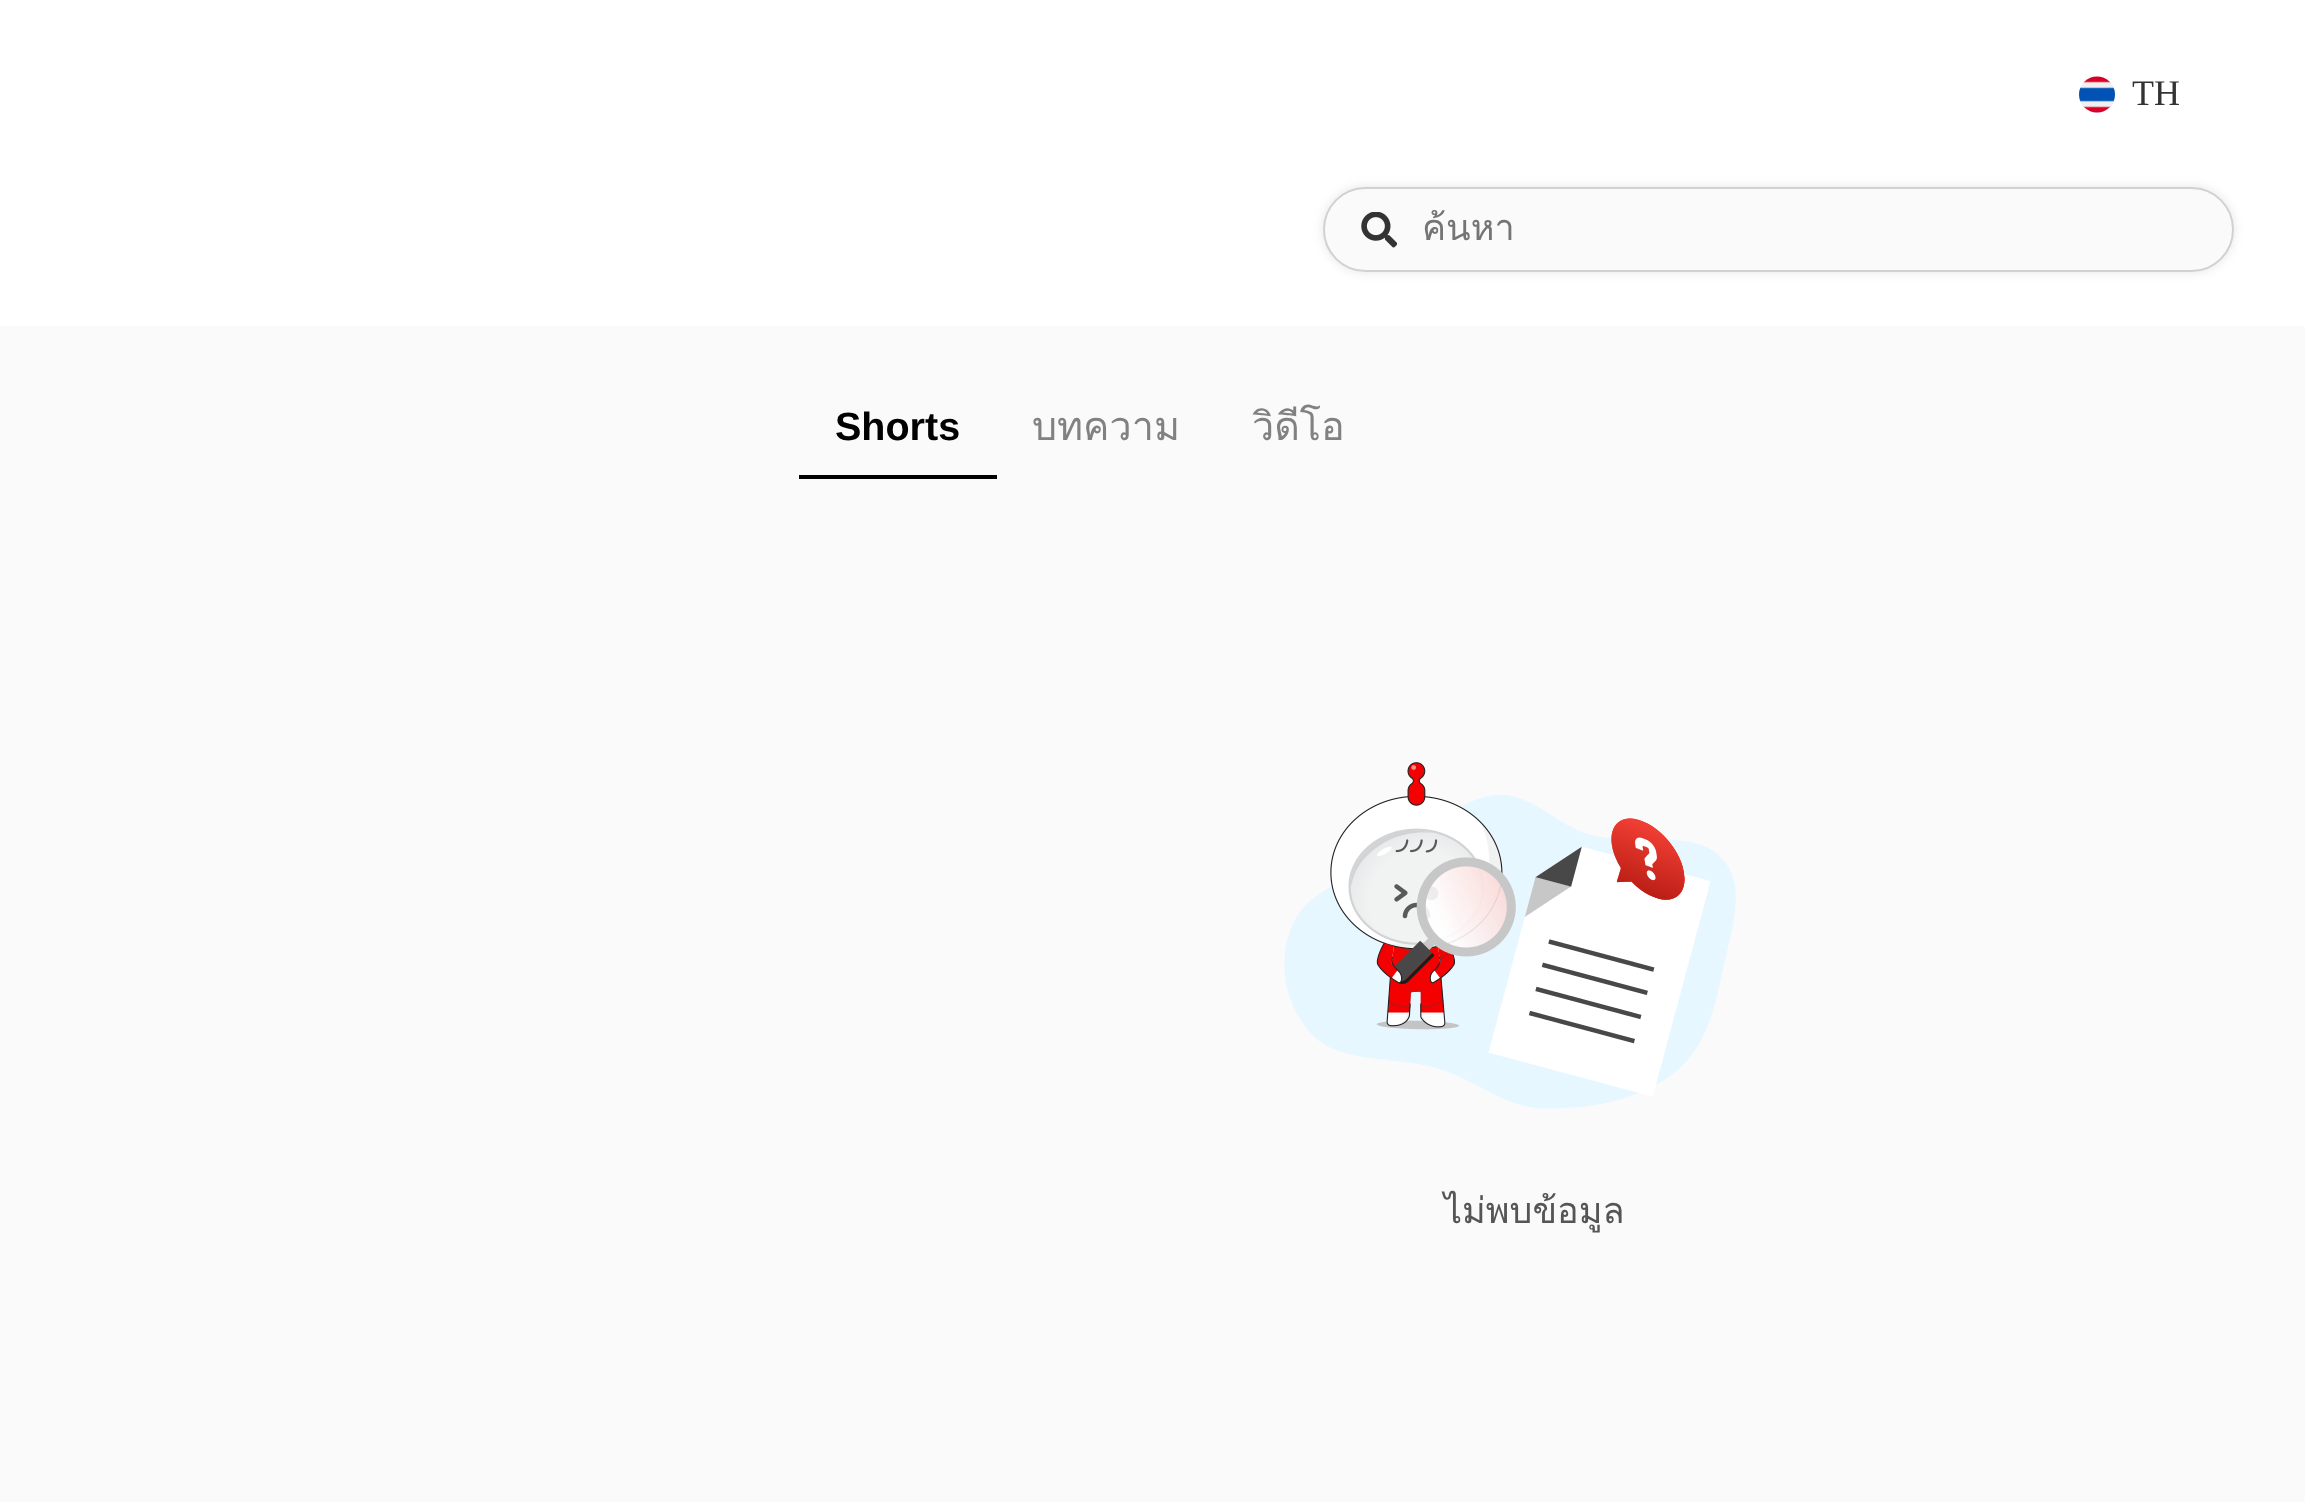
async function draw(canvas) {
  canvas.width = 2305;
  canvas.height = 1502;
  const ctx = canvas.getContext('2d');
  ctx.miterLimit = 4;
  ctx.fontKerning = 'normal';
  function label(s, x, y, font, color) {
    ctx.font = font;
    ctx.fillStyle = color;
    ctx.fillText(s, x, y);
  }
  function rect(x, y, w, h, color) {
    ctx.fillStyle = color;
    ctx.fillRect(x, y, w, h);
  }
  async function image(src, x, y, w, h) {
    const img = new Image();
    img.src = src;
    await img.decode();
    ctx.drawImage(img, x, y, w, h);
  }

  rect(0, 0, 2305, 1502, '#fafafa');
  rect(0, 0, 2305, 326, '#fff');
  ctx.fillStyle = '#efefef';
  ctx.beginPath();
  ctx.arc(2097, 95, 18, 0, 2 * Math.PI);
  ctx.fill();
  await image('assets/img1.png', 2079, 76, 37, 37);
  label('TH', 2132, 105, '36px Liberation Serif', '#333');
  ctx.fillStyle = '#0000001a';
  ctx.filter = 'blur(5.5px)';
  ctx.beginPath();
  ctx.roundRect(1323, 187, 911, 85, 42.5);
  ctx.fill();
  ctx.filter = 'none';
  ctx.fillStyle = '#fafafa';
  ctx.beginPath();
  ctx.roundRect(1324, 188, 909, 83, 41.5);
  ctx.fill();
  ctx.strokeStyle = '#d1d1d1';
  ctx.lineWidth = 2;
  ctx.stroke();
  await image('assets/img2.png', 1361, 212, 36, 36);
  ctx.save();
  ctx.beginPath();
  ctx.rect(1422, 200, 691, 57);
  ctx.clip();
  label('ค้นหา', 1422, 240, '36px Loma', '#757575');
  ctx.restore();
  rect(799, 475, 198, 4, '#000');
  label('Shorts', 835, 440, 'bold 39.5px Liberation Sans', '#000');
  label('บทความ', 1032, 440, '39.5px Loma', '#818181');
  label('วิดีโอ', 1252, 440, '39.5px Loma', '#818181');
  await image('assets/img3.png', 1284, 762, 452, 347);
  label('ไม่พบข้อมูล', 1444, 1223, '36px Loma', '#555');
}

draw(document.querySelector('canvas'));
